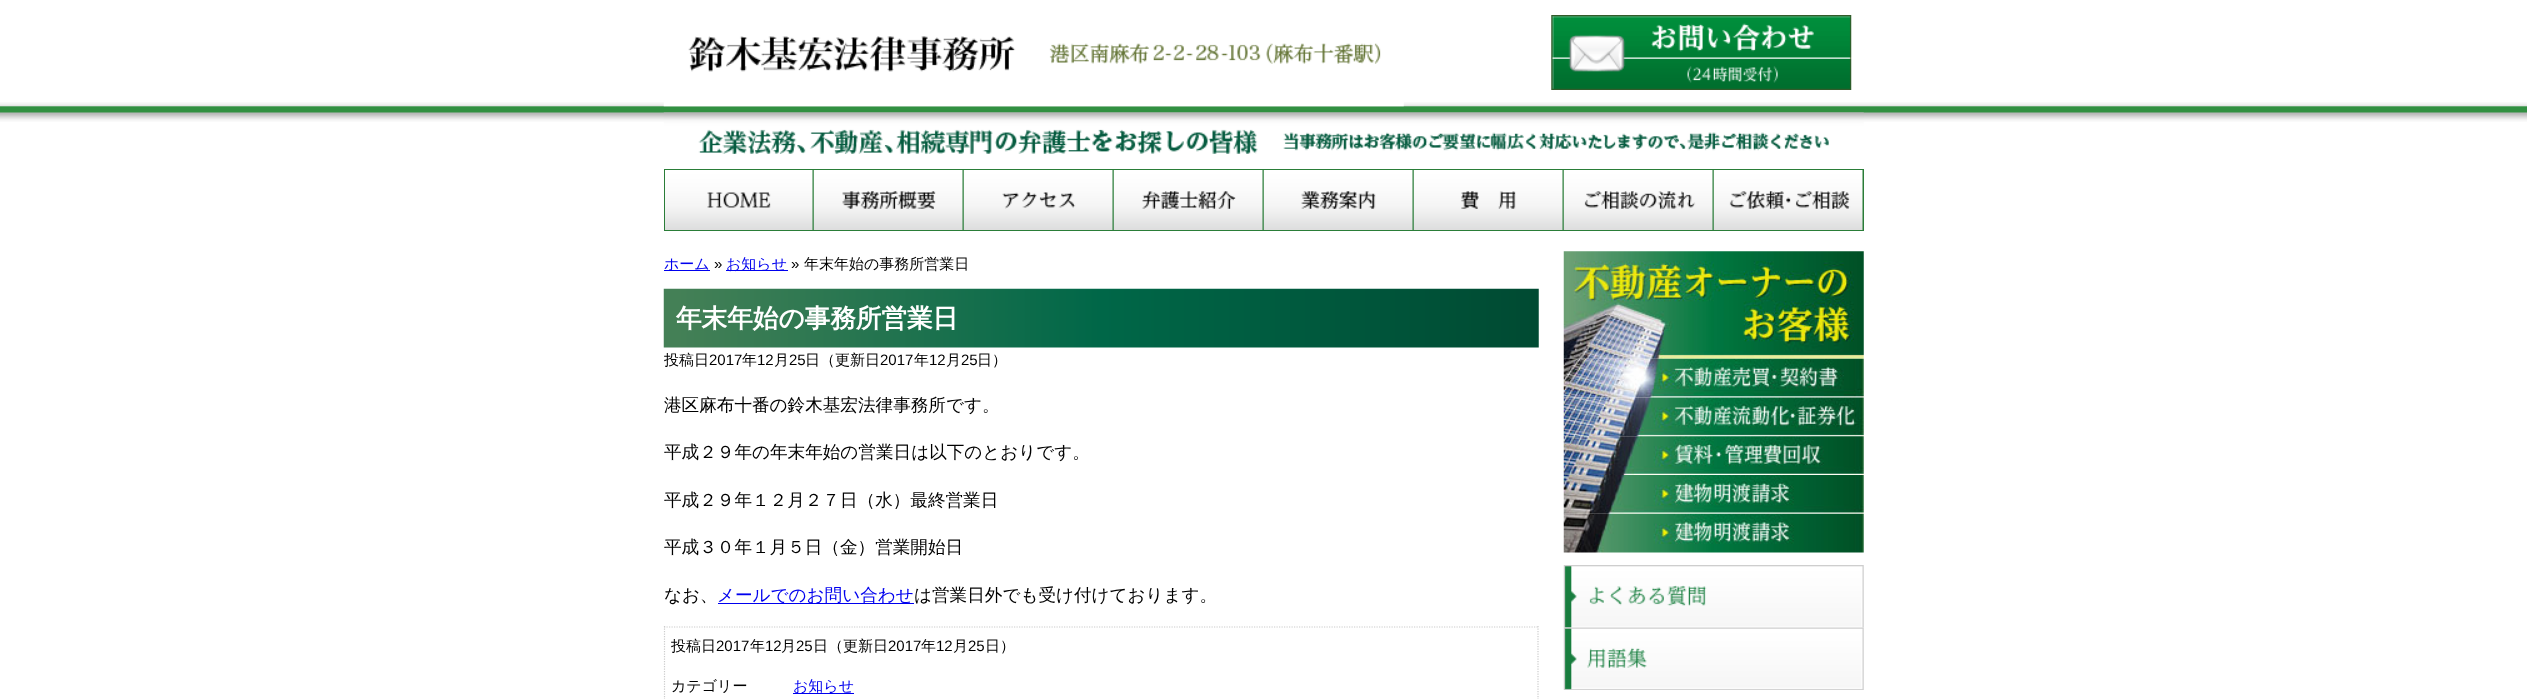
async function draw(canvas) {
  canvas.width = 2527;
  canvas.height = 699;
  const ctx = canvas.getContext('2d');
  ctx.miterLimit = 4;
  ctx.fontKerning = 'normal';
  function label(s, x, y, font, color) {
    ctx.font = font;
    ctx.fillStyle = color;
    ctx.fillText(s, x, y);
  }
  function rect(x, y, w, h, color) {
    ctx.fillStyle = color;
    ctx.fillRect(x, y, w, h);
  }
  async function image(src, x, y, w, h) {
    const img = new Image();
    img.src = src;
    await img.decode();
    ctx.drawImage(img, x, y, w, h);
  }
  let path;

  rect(0, 0, 2527, 699, '#fff');
  await image('assets/img1.png', 0, 102, 2527, 20);
  await image('assets/img2.png', 663, 36, 741, 71);
  await image('assets/img3.png', 1551, 15, 301, 75);
  await image('assets/img4.png', 663, 112, 1201, 42);
  rect(664, 169, 1200, 62, '#2a7d38');
  await image('assets/img5.png', 665, 170, 148, 60);
  await image('assets/img6.png', 813, 170, 150, 60);
  await image('assets/img7.png', 963, 170, 150, 60);
  await image('assets/img8.png', 1113, 170, 150, 60);
  await image('assets/img9.png', 1263, 170, 150, 60);
  await image('assets/img10.png', 1413, 170, 150, 60);
  await image('assets/img11.png', 1563, 170, 150, 60);
  await image('assets/img12.png', 1713, 170, 150, 60);
  rect(664, 270, 46, 1, '#00e');
  label('ホーム', 664, 269, '500 15px WenQuanYi Zen Hei', '#00e');
  label('»', 714, 269, '15px Liberation Sans', '#000');
  rect(726, 270, 62, 1, '#00e');
  label('お知らせ', 726, 269, '500 15px WenQuanYi Zen Hei', '#00e');
  label('»', 791, 269, '15px Liberation Sans', '#000');
  label('年末年始の事務所営業日', 804, 269, '500 15px WenQuanYi Zen Hei', '#000');
  await image('assets/img13.png', 663, 288, 876, 60);
  label('年末年始の事務所営業日', 676, 327, 'bold 25.6px WenQuanYi Zen Hei', '#fff');
  label('投稿日', 664, 365, '500 15px WenQuanYi Zen Hei', '#000');
  label('2017', 709, 365, '15px Liberation Sans', '#000');
  label('年', 742, 365, '500 15px WenQuanYi Zen Hei', '#000');
  label('12', 757, 365, '15px Liberation Sans', '#000');
  label('月', 774, 365, '500 15px WenQuanYi Zen Hei', '#000');
  label('25', 789, 365, '15px Liberation Sans', '#000');
  label('日（更新日', 805, 365, '500 15px WenQuanYi Zen Hei', '#000');
  label('2017', 880, 365, '15px Liberation Sans', '#000');
  label('年', 914, 365, '500 15px WenQuanYi Zen Hei', '#000');
  label('12', 929, 365, '15px Liberation Sans', '#000');
  label('月', 946, 365, '500 15px WenQuanYi Zen Hei', '#000');
  label('25', 961, 365, '15px Liberation Sans', '#000');
  label('日）', 977, 365, '500 15px WenQuanYi Zen Hei', '#000');
  label('港区麻布十番の鈴木基宏法律事務所です。', 664, 411, '500 17.6px WenQuanYi Zen Hei', '#000');
  label('平成２９年の年末年始の営業日は以下のとおりです。', 664, 458, '500 17.6px WenQuanYi Zen Hei', '#000');
  label('平成２９年１２月２７日（水）最終営業日', 664, 506, '500 17.6px WenQuanYi Zen Hei', '#000');
  label('平成３０年１月５日（金）営業開始日', 664, 553, '500 17.6px WenQuanYi Zen Hei', '#000');
  label('なお、', 664, 601, '500 17.6px WenQuanYi Zen Hei', '#000');
  rect(718, 603, 196, 1, '#00e');
  label('メールでのお問い合わせ', 717, 601, '500 17.6px WenQuanYi Zen Hei', '#00e');
  label('は営業日外でも受け付けております。', 914, 601, '500 17.6px WenQuanYi Zen Hei', '#000');
  path = new Path2D('M664 627H1539');
  ctx.strokeStyle = '#ccc';
  ctx.lineWidth = 1.2;
  ctx.setLineDash([1.25, 1.25]);
  ctx.stroke(path);
  path = new Path2D('M1538 626V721');
  ctx.stroke(path);
  path = new Path2D('M664.5 626V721');
  ctx.stroke(path);
  label('投稿日', 671, 651, '500 15px WenQuanYi Zen Hei', '#000');
  label('2017', 716, 651, '15px Liberation Sans', '#000');
  label('年', 750, 651, '500 15px WenQuanYi Zen Hei', '#000');
  label('12', 765, 651, '15px Liberation Sans', '#000');
  label('月', 781, 651, '500 15px WenQuanYi Zen Hei', '#000');
  label('25', 796, 651, '15px Liberation Sans', '#000');
  label('日（更新日', 813, 651, '500 15px WenQuanYi Zen Hei', '#000');
  label('2017', 888, 651, '15px Liberation Sans', '#000');
  label('年', 921, 651, '500 15px WenQuanYi Zen Hei', '#000');
  label('12', 936, 651, '15px Liberation Sans', '#000');
  label('月', 953, 651, '500 15px WenQuanYi Zen Hei', '#000');
  label('25', 968, 651, '15px Liberation Sans', '#000');
  label('日）', 985, 651, '500 15px WenQuanYi Zen Hei', '#000');
  label('カテゴリー', 671, 691, '500 15px WenQuanYi Zen Hei', '#000');
  rect(793, 693, 61, 1, '#00e');
  label('お知らせ', 793, 691, '500 15px WenQuanYi Zen Hei', '#00e');
  await image('assets/img14.png', 1563, 251, 301, 108);
  await image('assets/img15.png', 1563, 358, 301, 40);
  await image('assets/img16.png', 1563, 397, 301, 40);
  await image('assets/img17.png', 1563, 436, 301, 39);
  await image('assets/img18.png', 1563, 475, 301, 39);
  await image('assets/img19.png', 1563, 513, 301, 40);
  await image('assets/img20.png', 1563, 565, 301, 63);
  await image('assets/img21.png', 1563, 627, 301, 63);
}

draw(document.querySelector('canvas'));
